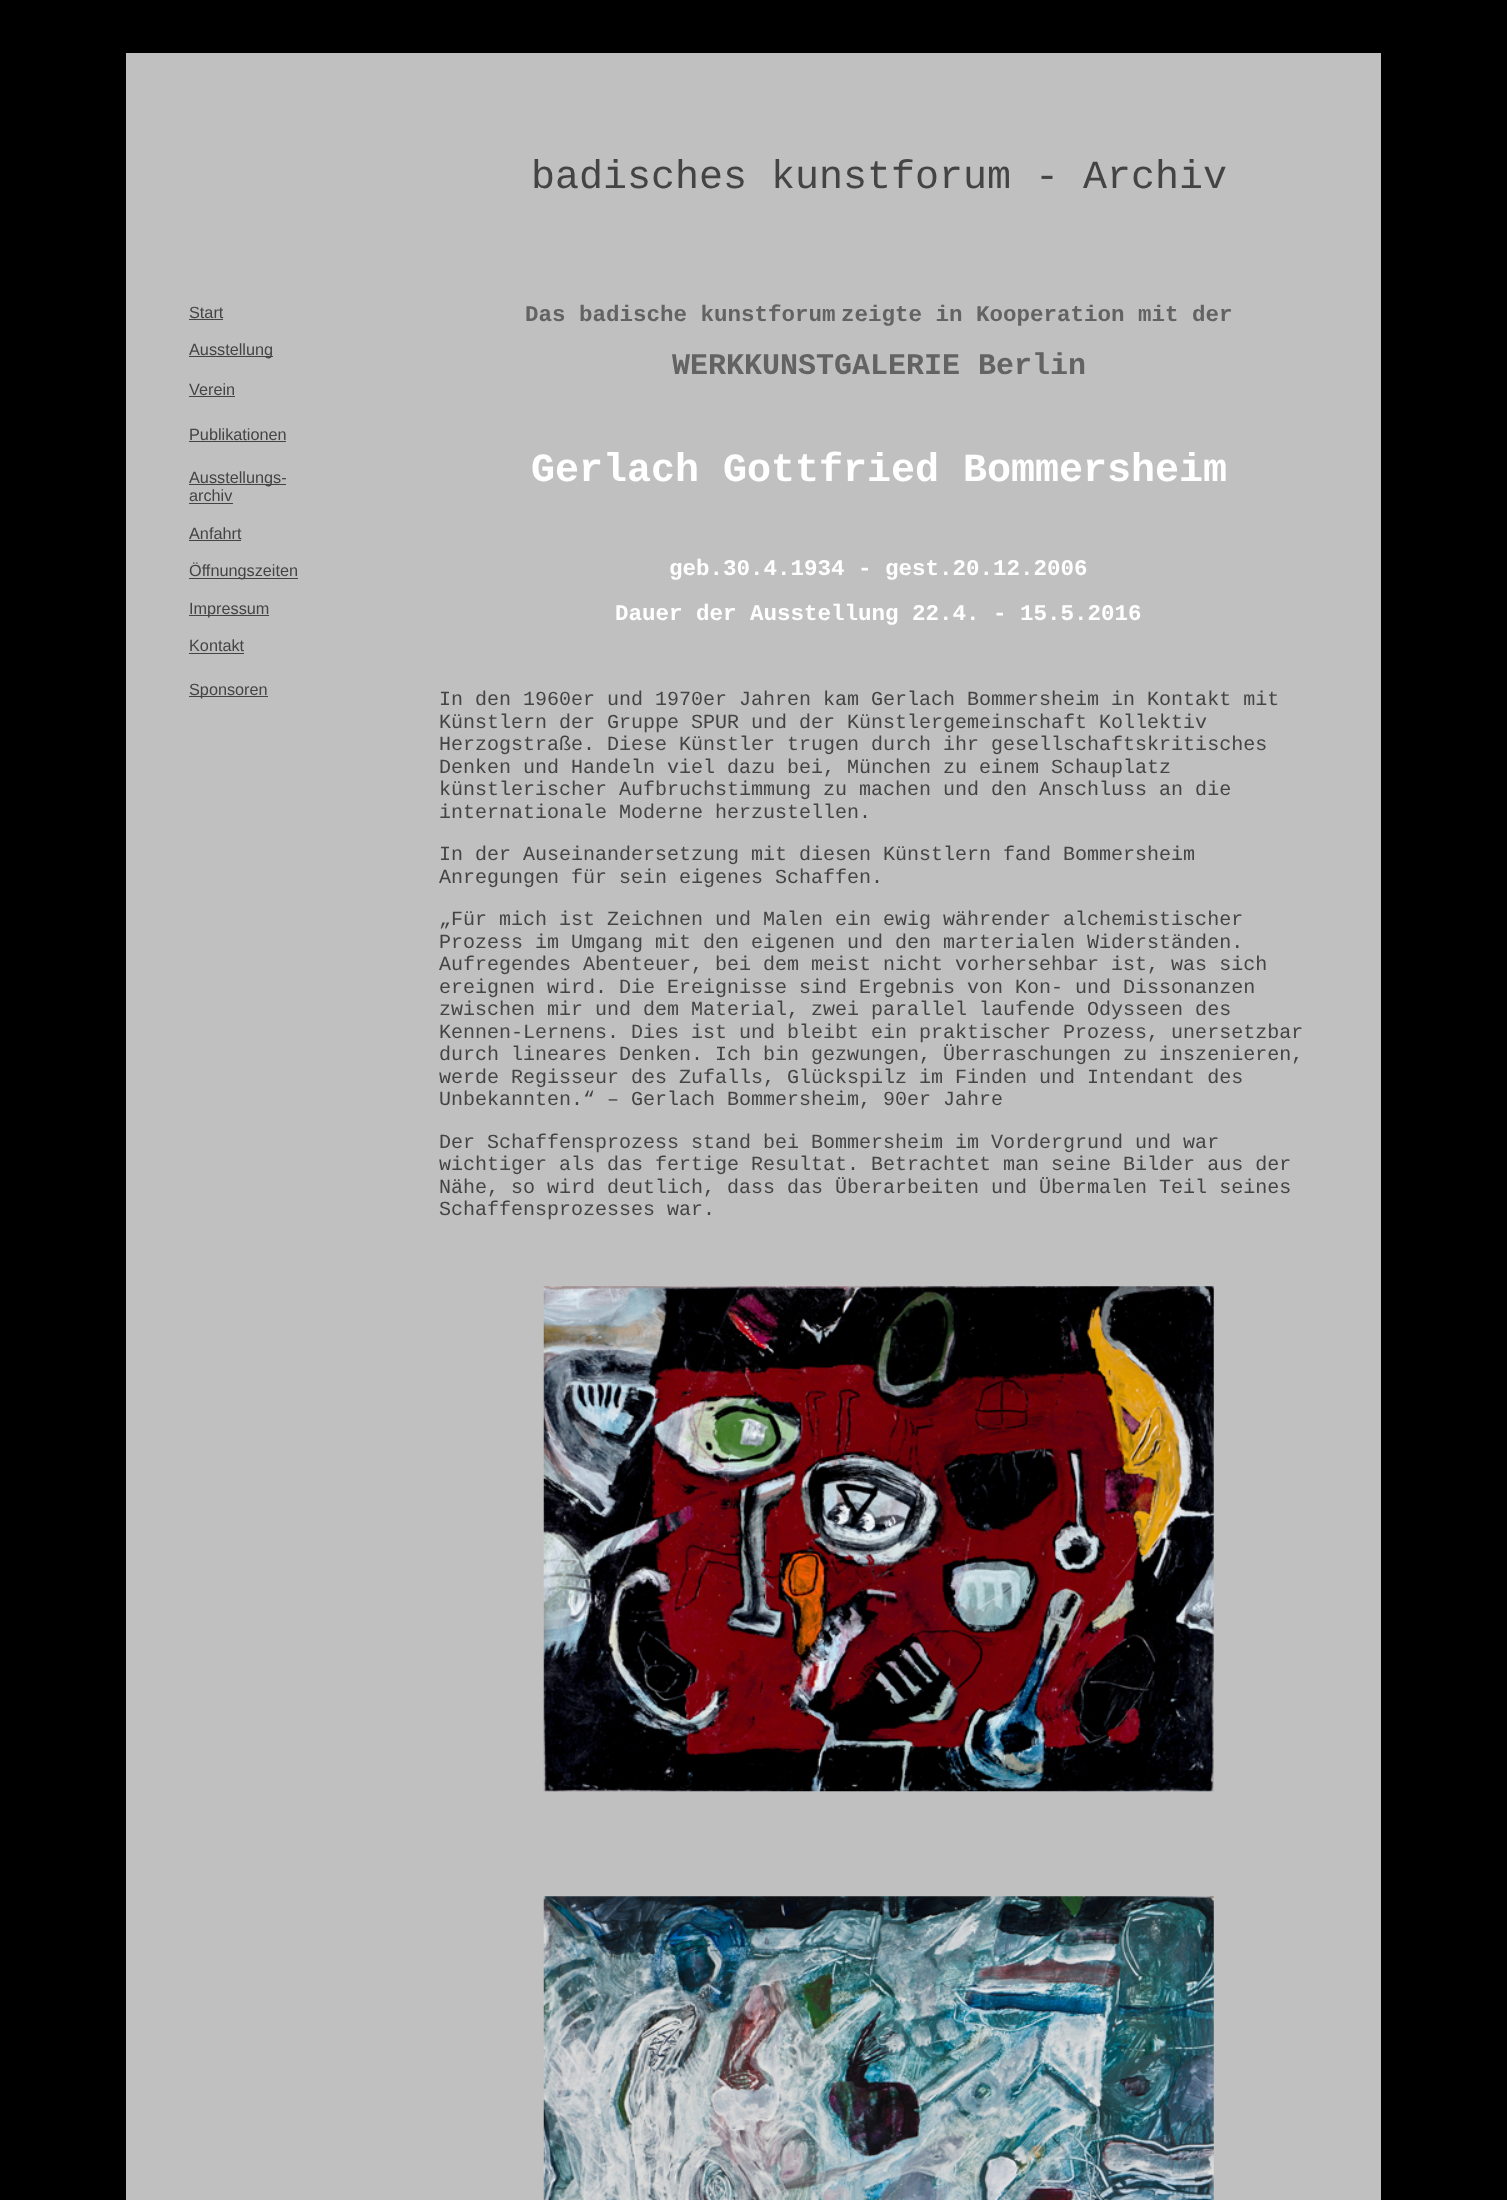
async function draw(canvas) {
  canvas.width = 1507;
  canvas.height = 2200;
  const ctx = canvas.getContext('2d');
  ctx.miterLimit = 4;
  ctx.fontKerning = 'normal';
  function label(s, x, y, font, color) {
    ctx.font = font;
    ctx.fillStyle = color;
    ctx.fillText(s, x, y);
  }
  function rect(x, y, w, h, color) {
    ctx.fillStyle = color;
    ctx.fillRect(x, y, w, h);
  }
  async function image(src, x, y, w, h) {
    const img = new Image();
    img.src = src;
    await img.decode();
    ctx.drawImage(img, x, y, w, h);
  }

  rect(0, 0, 1507, 2200, '#000');
  rect(126, 53, 1255, 2147, '#c0c0c0');
  label('badisches kunstforum - Archiv', 531, 188, '40px Liberation Mono', '#444');
  label('Start', 189, 318, '16.25px Liberation Sans', '#444');
  rect(189, 319, 34, 1, '#444');
  rect(189, 356, 84, 1, '#444');
  label('Ausstellung', 189, 355, '16.25px Liberation Sans', '#444');
  label('Verein', 189, 395, '16.25px Liberation Sans', '#444');
  rect(189, 396, 46, 1, '#444');
  label('Publikationen', 189, 440, '16.25px Liberation Sans', '#444');
  rect(189, 441, 97, 1, '#444');
  rect(189, 484, 97, 1, '#444');
  label('Ausstellungs-', 189, 483, '16.25px Liberation Sans', '#444');
  label('archiv', 189, 501, '16.25px Liberation Sans', '#444');
  rect(189, 503, 44, 1, '#444');
  label('Anfahrt', 189, 539, '16.25px Liberation Sans', '#444');
  rect(189, 540, 52, 1, '#444');
  rect(189, 578, 109, 1, '#444');
  label('Öffnungszeiten', 189, 576, '16.25px Liberation Sans', '#444');
  rect(189, 615, 80, 1, '#444');
  label('Impressum', 189, 614, '16.25px Liberation Sans', '#444');
  label('Kontakt', 189, 651, '16.25px Liberation Sans', '#444');
  rect(189, 653, 55, 1, '#444');
  rect(189, 696, 79, 1, '#444');
  label('Sponsoren', 189, 695, '16.25px Liberation Sans', '#444');
  label('Das badische kunstforum', 525, 321, 'bold 22.5px Liberation Mono', '#636363');
  label('zeigte in Kooperation mit der', 841, 321, 'bold 22.5px Liberation Mono', '#636363');
  label('WERKKUNSTGALERIE Berlin', 672, 374, 'bold 30px Liberation Mono', '#636363');
  label('Gerlach Gottfried Bommersheim', 531, 481, 'bold 40px Liberation Mono', '#fff');
  label('geb.30.4.1934 - gest.20.12.2006', 669, 575, 'bold 22.5px Liberation Mono', '#fff');
  label('Dauer der Ausstellung 22.4. - 15.5.2016', 615, 620, 'bold 22.5px Liberation Mono', '#fff');
  label('In den 1960er und 1970er Jahren kam Gerlach Bommersheim in Kontakt mit', 439, 705, '20px Liberation Mono', '#444');
  label('Künstlern der Gruppe SPUR und der Künstlergemeinschaft Kollektiv', 439, 728, '20px Liberation Mono', '#444');
  label('Herzogstraße. Diese Künstler trugen durch ihr gesellschaftskritisches', 439, 750, '20px Liberation Mono', '#444');
  label('Denken und Handeln viel dazu bei, München zu einem Schauplatz', 439, 773, '20px Liberation Mono', '#444');
  label('künstlerischer Aufbruchstimmung zu machen und den Anschluss an die', 439, 795, '20px Liberation Mono', '#444');
  label('internationale Moderne herzustellen.', 439, 818, '20px Liberation Mono', '#444');
  label('In der Auseinandersetzung mit diesen Künstlern fand Bommersheim', 439, 860, '20px Liberation Mono', '#444');
  label('Anregungen für sein eigenes Schaffen.', 439, 883, '20px Liberation Mono', '#444');
  label('„Für mich ist Zeichnen und Malen ein ewig währender alchemistischer', 439, 925, '20px Liberation Mono', '#444');
  label('Prozess im Umgang mit den eigenen und den marterialen Widerständen.', 439, 948, '20px Liberation Mono', '#444');
  label('Aufregendes Abenteuer, bei dem meist nicht vorhersehbar ist, was sich', 439, 970, '20px Liberation Mono', '#444');
  label('ereignen wird. Die Ereignisse sind Ergebnis von Kon- und Dissonanzen', 439, 993, '20px Liberation Mono', '#444');
  label('zwischen mir und dem Material, zwei parallel laufende Odysseen des', 439, 1015, '20px Liberation Mono', '#444');
  label('Kennen-Lernens. Dies ist und bleibt ein praktischer Prozess, unersetzbar', 439, 1038, '20px Liberation Mono', '#444');
  label('durch lineares Denken. Ich bin gezwungen, Überraschungen zu inszenieren,', 439, 1060, '20px Liberation Mono', '#444');
  label('werde Regisseur des Zufalls, Glückspilz im Finden und Intendant des', 439, 1083, '20px Liberation Mono', '#444');
  label('Unbekannten.“ – Gerlach Bommersheim, 90er Jahre', 439, 1105, '20px Liberation Mono', '#444');
  label('Der Schaffensprozess stand bei Bommersheim im Vordergrund und war', 439, 1148, '20px Liberation Mono', '#444');
  label('wichtiger als das fertige Resultat. Betrachtet man seine Bilder aus der', 439, 1170, '20px Liberation Mono', '#444');
  label('Nähe, so wird deutlich, dass das Überarbeiten und Übermalen Teil seines', 439, 1193, '20px Liberation Mono', '#444');
  label('Schaffensprozesses war.', 439, 1215, '20px Liberation Mono', '#444');
  await image('assets/img1.png', 543, 1286, 671, 506);
  await image('assets/img2.png', 543, 1896, 671, 304);
}

draw(document.querySelector('canvas'));
